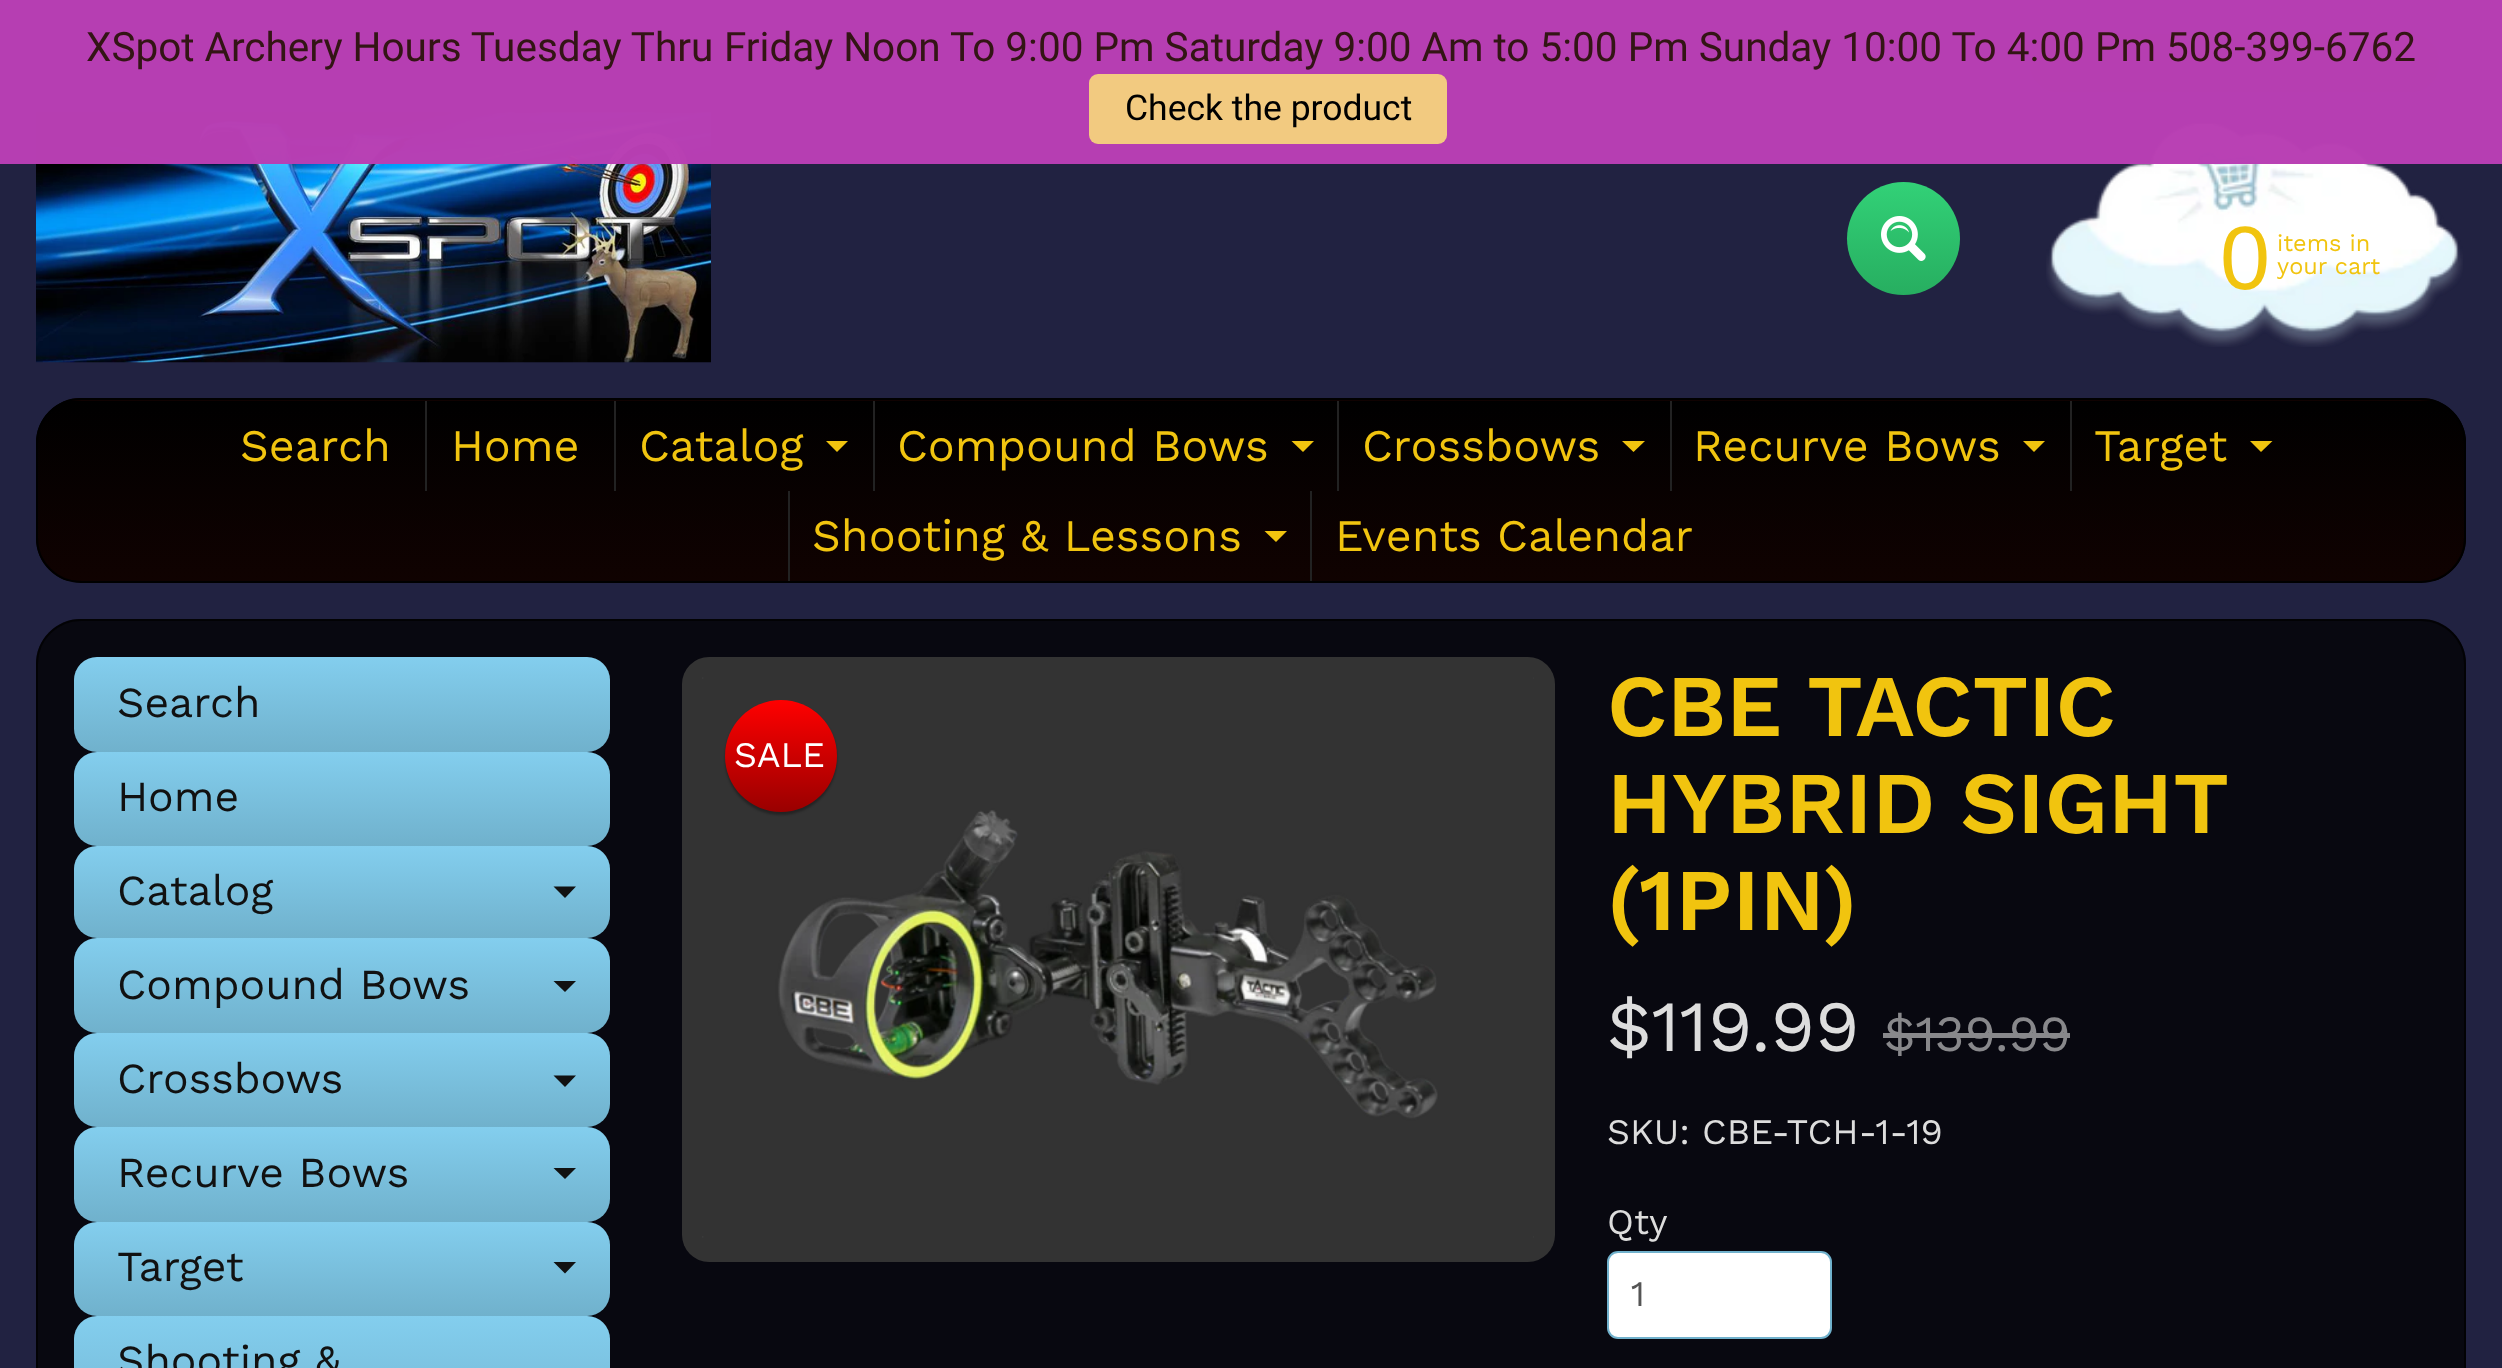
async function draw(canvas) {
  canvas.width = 2502;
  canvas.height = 1368;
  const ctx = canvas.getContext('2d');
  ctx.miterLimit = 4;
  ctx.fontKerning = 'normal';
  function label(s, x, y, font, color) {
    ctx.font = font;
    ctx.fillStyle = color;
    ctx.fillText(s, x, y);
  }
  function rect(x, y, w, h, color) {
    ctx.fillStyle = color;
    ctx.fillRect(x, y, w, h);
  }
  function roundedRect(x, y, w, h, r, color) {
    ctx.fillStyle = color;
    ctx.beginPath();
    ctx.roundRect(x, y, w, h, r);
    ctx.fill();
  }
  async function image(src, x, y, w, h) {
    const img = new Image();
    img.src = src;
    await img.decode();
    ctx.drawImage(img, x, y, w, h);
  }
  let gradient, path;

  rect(0, 0, 2502, 1368, '#212241');
  await image('assets/img1.png', 36, 112, 675, 251);
  ctx.fillStyle = '#0a0a14';
  ctx.beginPath();
  ctx.roundRect(2031, 35, 407, 56, 28);
  ctx.fill();
  ctx.strokeStyle = '#000';
  ctx.lineWidth = 2;
  ctx.stroke();
  await image('assets/img3.png', 2046, 123, 417, 224);
  rect(0, 0, 2502, 164, '#b83fb3fc');
  label('XSpot Archery Hours Tuesday Thru', 86, 61, '40.5px Roboto', '#331515');
  label('Friday Noon', 724, 61, '40.5px Roboto', '#331515');
  label('To 9:00 Pm Saturday 9:00 Am to 5:00 Pm Sunday 10:00 To 4:00 Pm 508-399-6762', 950, 61, '40.5px Roboto', '#331515');
  roundedRect(1089, 74, 358, 70, 9, '#f2ca80');
  label('Check the product', 1125, 120, '35.5px Roboto', '#000');
  gradient = ctx.createLinearGradient(1904, 182, 1904, 295);
  gradient.addColorStop(0, '#32d177');
  gradient.addColorStop(1, '#27ae60');
  ctx.fillStyle = gradient;
  ctx.beginPath();
  ctx.arc(1903.5, 238.5, 56.5, 0, 2 * Math.PI);
  ctx.fill();
  await image('assets/img2.png', 1881, 216, 45, 45);
  label('0', 2220, 289, '90px Liberation Sans', '#f1c40f');
  label('items in', 2277, 251, '23.5px Work Sans', '#f1c40f');
  label('your cart', 2277, 274, '23.5px Work Sans', '#f1c40f');
  ctx.save();
  ctx.beginPath();
  ctx.roundRect(36, 398, 2430, 185, 45);
  ctx.clip();
  gradient = ctx.createLinearGradient(1251, 220, 1251, 401);
  gradient.addColorStop(0, '#000');
  gradient.addColorStop(1, '#100201');
  ctx.fillStyle = gradient;
  ctx.fillRect(65, 398, 2372, 3);
  gradient = ctx.createLinearGradient(1251, 400, 1251, 581);
  gradient.addColorStop(0, '#000');
  gradient.addColorStop(1, '#100201');
  ctx.fillStyle = gradient;
  ctx.fillRect(36, 401, 2430, 180);
  ctx.restore();
  ctx.beginPath();
  ctx.roundRect(37, 399, 2428, 183, 44);
  ctx.stroke();
  label('Search', 240, 461, '45px Work Sans', '#f1c40f');
  rect(425, 401, 2, 90, '#222');
  label('Home', 451, 461, '45px Work Sans', '#f1c40f');
  rect(614, 401, 2, 90, '#222');
  label('Catalog', 639, 461, '45px Work Sans', '#f1c40f');
  path = new Path2D('M826 441H848L837 452Z');
  ctx.fill(path);
  rect(873, 401, 2, 90, '#222');
  label('Compound Bows', 897, 461, '45px Work Sans', '#f1c40f');
  path = new Path2D('M1291.5 441H1314L1303 452Z');
  ctx.fill(path);
  rect(1337, 401, 2, 90, '#222');
  label('Crossbows', 1362, 461, '45px Work Sans', '#f1c40f');
  path = new Path2D('M1622 441H1645L1633.5 452Z');
  ctx.fill(path);
  rect(1670, 401, 2, 90, '#222');
  label('Recurve Bows', 1693, 461, '45px Work Sans', '#f1c40f');
  path = new Path2D('M2023 441H2045L2034 452Z');
  ctx.fill(path);
  rect(2070, 401, 2, 90, '#222');
  label('Target', 2094, 461, '45px Work Sans', '#f1c40f');
  path = new Path2D('M2250 441H2272.5L2261 452Z');
  ctx.fill(path);
  rect(788, 491, 2, 90, '#222');
  label('Shooting & Lessons', 812, 551, '45px Work Sans', '#f1c40f');
  path = new Path2D('M1264.5 531H1287L1276 542Z');
  ctx.fill(path);
  rect(1310, 491, 2, 90, '#222');
  label('Events Calendar', 1335, 551, '45px Work Sans', '#f1c40f');
  roundedRect(36, 619, 2430, 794, 45, '#080810');
  ctx.beginPath();
  ctx.roundRect(37, 620, 2428, 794, 44);
  ctx.strokeStyle = '#000000b3';
  ctx.stroke();
  gradient = ctx.createLinearGradient(342, 657, 342, 752);
  gradient.addColorStop(0, '#83ceee');
  gradient.addColorStop(1, '#70b1cc');
  ctx.fillStyle = gradient;
  ctx.beginPath();
  ctx.roundRect(74, 657, 536, 95, 23);
  ctx.fill();
  label('Search', 117, 717, '42.75px Work Sans', '#111');
  gradient = ctx.createLinearGradient(342, 752, 342, 846);
  gradient.addColorStop(0, '#83ceee');
  gradient.addColorStop(1, '#70b1cc');
  ctx.fillStyle = gradient;
  ctx.beginPath();
  ctx.roundRect(74, 752, 536, 94, 23);
  ctx.fill();
  label('Home', 117, 811, '42.75px Work Sans', '#111');
  gradient = ctx.createLinearGradient(342, 846, 342, 938);
  gradient.addColorStop(0, '#83ceee');
  gradient.addColorStop(1, '#70b1cc');
  ctx.fillStyle = gradient;
  ctx.beginPath();
  ctx.roundRect(74, 846, 536, 92, 23);
  ctx.fill();
  label('Catalog', 117, 905, '42.75px Work Sans', '#111');
  path = new Path2D('M553.5 886.5H576L565 898Z');
  ctx.fill(path);
  gradient = ctx.createLinearGradient(342, 938, 342, 1033);
  gradient.addColorStop(0, '#83ceee');
  gradient.addColorStop(1, '#70b1cc');
  ctx.fillStyle = gradient;
  ctx.beginPath();
  ctx.roundRect(74, 938, 536, 95, 23);
  ctx.fill();
  label('Compound Bows', 117, 999, '42.75px Work Sans', '#111');
  path = new Path2D('M553.5 981H576L565 992Z');
  ctx.fill(path);
  gradient = ctx.createLinearGradient(342, 1033, 342, 1127);
  gradient.addColorStop(0, '#83ceee');
  gradient.addColorStop(1, '#70b1cc');
  ctx.fillStyle = gradient;
  ctx.beginPath();
  ctx.roundRect(74, 1033, 536, 94, 23);
  ctx.fill();
  label('Crossbows', 117, 1093, '42.75px Work Sans', '#111');
  path = new Path2D('M553.5 1075.5H576L565 1087Z');
  ctx.fill(path);
  gradient = ctx.createLinearGradient(342, 1127, 342, 1222);
  gradient.addColorStop(0, '#83ceee');
  gradient.addColorStop(1, '#70b1cc');
  ctx.fillStyle = gradient;
  ctx.beginPath();
  ctx.roundRect(74, 1127, 536, 95, 23);
  ctx.fill();
  label('Recurve Bows', 117, 1187, '42.75px Work Sans', '#111');
  path = new Path2D('M553.5 1168H576L565 1179Z');
  ctx.fill(path);
  gradient = ctx.createLinearGradient(342, 1222, 342, 1316);
  gradient.addColorStop(0, '#83ceee');
  gradient.addColorStop(1, '#70b1cc');
  ctx.fillStyle = gradient;
  ctx.beginPath();
  ctx.roundRect(74, 1222, 536, 94, 23);
  ctx.fill();
  label('Target', 117, 1281, '42.75px Work Sans', '#111');
  path = new Path2D('M553.5 1262H576L565 1273.5Z');
  ctx.fill(path);
  gradient = ctx.createLinearGradient(342, 1316, 342, 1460);
  gradient.addColorStop(0, '#83ceee');
  gradient.addColorStop(1, '#70b1cc');
  ctx.fillStyle = gradient;
  ctx.beginPath();
  ctx.roundRect(74, 1316, 536, 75, 23);
  ctx.fill();
  label('Shooting &', 117, 1375, '42.75px Work Sans', '#111');
  roundedRect(682, 657, 873, 605, 27, '#333');
  await image('assets/img4.png', 702, 677, 832, 561);
  ctx.fillStyle = '#0000004d';
  ctx.filter = 'blur(1px)';
  ctx.beginPath();
  ctx.roundRect(725, 702, 112, 113, 56);
  ctx.fill();
  ctx.filter = 'none';
  gradient = ctx.createLinearGradient(781, 700, 781, 812);
  gradient.addColorStop(0, '#f00');
  gradient.addColorStop(1, '#900');
  ctx.fillStyle = gradient;
  ctx.beginPath();
  ctx.arc(781, 756, 56, 0, 2 * Math.PI);
  ctx.fill();
  label('SALE', 734, 767, '36px Work Sans', '#fff');
  label('CBE TACTIC', 1607, 736, '600 88px Work Sans', '#f1c40f');
  ctx.wordSpacing = '-2px';
  label('HYBRID SIGHT', 1607, 833, '600 88px Work Sans', '#f1c40f');
  ctx.wordSpacing = '0px';
  label('(1PIN)', 1607, 930, '600 88px Work Sans', '#f1c40f');
  label('$119.99', 1607, 1051, '72px Work Sans', '#ddd');
  label('$139.99', 1884, 1051, '50.5px Work Sans', '#88888b');
  rect(1883, 1033, 187, 5, '#88888b');
  label('SKU: CBE-TCH-1-19', 1607, 1144, '36px Work Sans', '#ddd');
  label('Qty', 1607, 1234, '36px Work Sans', '#ddd');
  ctx.fillStyle = '#fff';
  ctx.beginPath();
  ctx.roundRect(1608, 1252, 223, 86, 10);
  ctx.fill();
  ctx.strokeStyle = '#70b1cc';
  ctx.stroke();
  label('1', 1631, 1306, '36px Work Sans', '#555');
}

draw(document.querySelector('canvas'));
